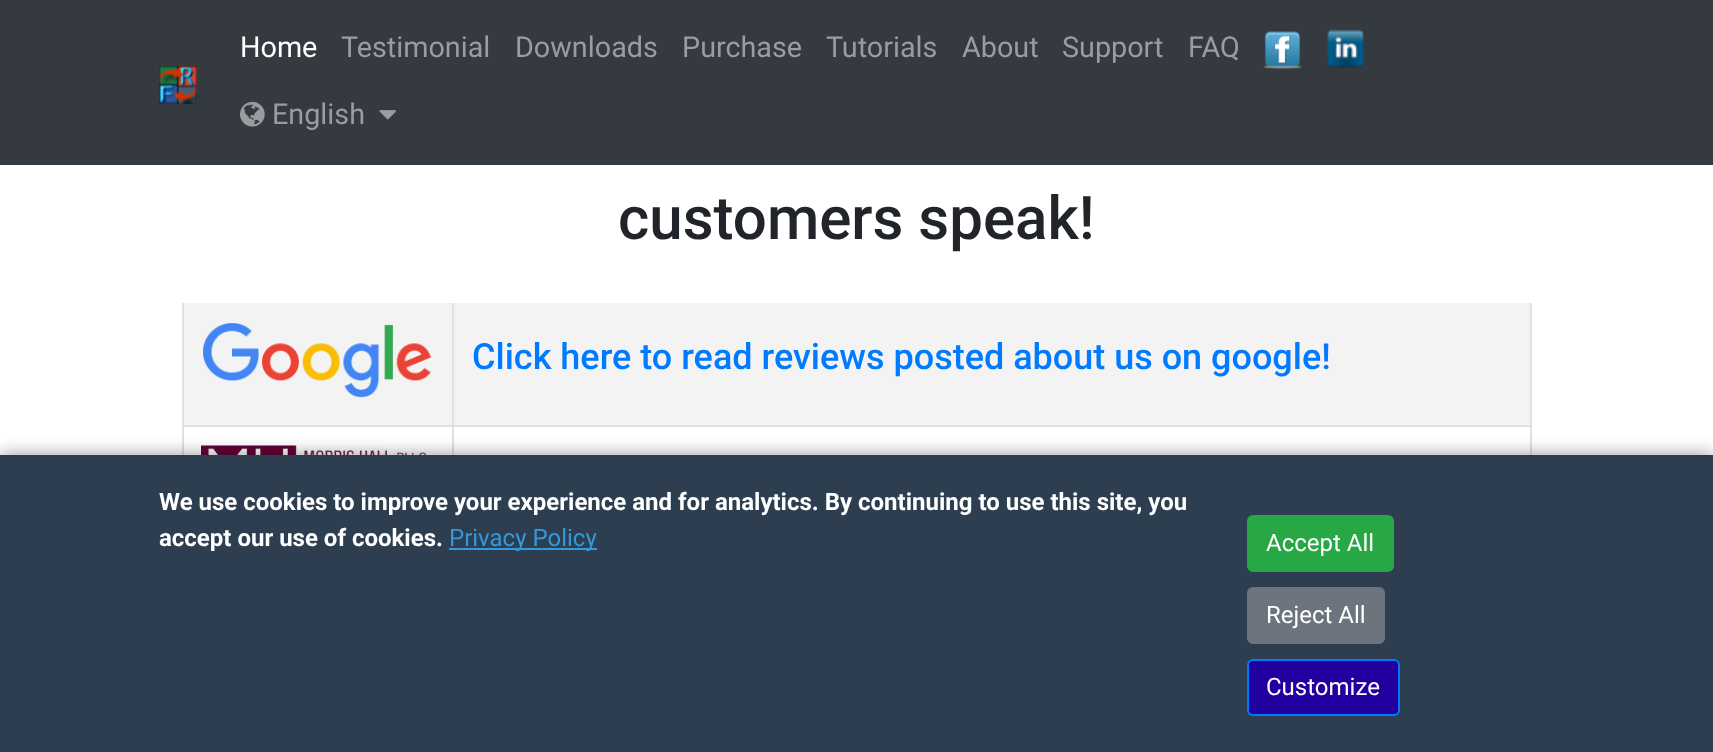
async function draw(canvas) {
  canvas.width = 1713;
  canvas.height = 752;
  const ctx = canvas.getContext('2d');
  ctx.miterLimit = 4;
  ctx.fontKerning = 'normal';
  function label(s, x, y, font, color) {
    ctx.font = font;
    ctx.fillStyle = color;
    ctx.fillText(s, x, y);
  }
  function rect(x, y, w, h, color) {
    ctx.fillStyle = color;
    ctx.fillRect(x, y, w, h);
  }
  async function image(src, x, y, w, h) {
    const img = new Image();
    img.src = src;
    await img.decode();
    ctx.drawImage(img, x, y, w, h);
  }

  rect(0, 0, 1713, 752, '#fff');
  rect(0, 0, 1713, 165, '#343a40');
  await image('assets/img1.png', 159, 65, 38, 39);
  label('Home', 240, 57, '28.75px Roboto', '#fff');
  label('Testimonial', 341, 57, '28.75px Roboto', '#9a9da0');
  label('Downloads', 515, 57, '28.75px Roboto', '#9a9da0');
  label('Purchase', 682, 57, '28.75px Roboto', '#9a9da0');
  label('Tutorials', 826, 57, '28.75px Roboto', '#9a9da0');
  label('About', 962, 57, '28.75px Roboto', '#9a9da0');
  label('Support', 1062, 57, '28.75px Roboto', '#9a9da0');
  label('FAQ', 1188, 57, '28.75px Roboto', '#9a9da0');
  await image('assets/img2.png', 1263, 31, 39, 39);
  await image('assets/img3.png', 1327, 29, 37, 39);
  await image('assets/img4.png', 240, 101, 25, 26);
  label('English', 272, 124, '28.75px Roboto', '#9a9da0');
  await image('assets/img5.png', 379, 110, 17, 10);
  label('customers speak!', 618, 239, '500 60px Roboto', '#212529');
  rect(182, 425, 2, 30, '#dee2e6');
  await image('assets/img6.png', 201, 445, 225, 10);
  rect(1530, 303, 2, 152, '#dee2e6');
  rect(452, 425, 2, 30, '#dee2e6');
  rect(184, 303, 1346, 122, '#f3f3f3');
  rect(452, 425, 1080, 2, '#dee2e6');
  rect(452, 303, 2, 123, '#dee2e6');
  rect(182, 425, 271, 2, '#dee2e6');
  rect(182, 303, 2, 123, '#dee2e6');
  await image('assets/img7.png', 203, 323, 229, 75);
  label('Click here to read reviews posted about us on google!', 472, 369, '500 36px Roboto', '#007bff');
  ctx.fillStyle = '#0000004d';
  ctx.filter = 'blur(7.5px)';
  ctx.beginPath();
  ctx.rect(0, 452, 1713, 298);
  ctx.fill();
  ctx.filter = 'none';
  rect(0, 455, 1713, 297, '#2c3e50');
  label('We use cookies to improve your experience and for analytics. By continuing to use this site, you', 159, 510, 'bold 24px Roboto', '#fff');
  label('accept our use of cookies.', 159, 546, 'bold 24px Roboto', '#fff');
  rect(449, 548, 148, 2, '#3498db');
  label('Privacy Policy', 449, 546, '24px Roboto', '#3498db');
  ctx.fillStyle = '#28a745';
  ctx.beginPath();
  ctx.roundRect(1248, 516, 145, 55, 5);
  ctx.fill();
  ctx.strokeStyle = '#28a745';
  ctx.lineWidth = 2;
  ctx.stroke();
  label('Accept All', 1266, 551, '24px Roboto', '#fff');
  ctx.fillStyle = '#6c757d';
  ctx.beginPath();
  ctx.roundRect(1248, 588, 136, 55, 5);
  ctx.fill();
  ctx.strokeStyle = '#6c757d';
  ctx.stroke();
  label('Reject All', 1266, 623, '24px Roboto', '#fff');
  ctx.fillStyle = '#22009f';
  ctx.beginPath();
  ctx.roundRect(1248, 660, 151, 55, 5);
  ctx.fill();
  ctx.strokeStyle = '#007bff';
  ctx.stroke();
  label('Customize', 1266, 695, '24px Roboto', '#fff');
}

draw(document.querySelector('canvas'));
